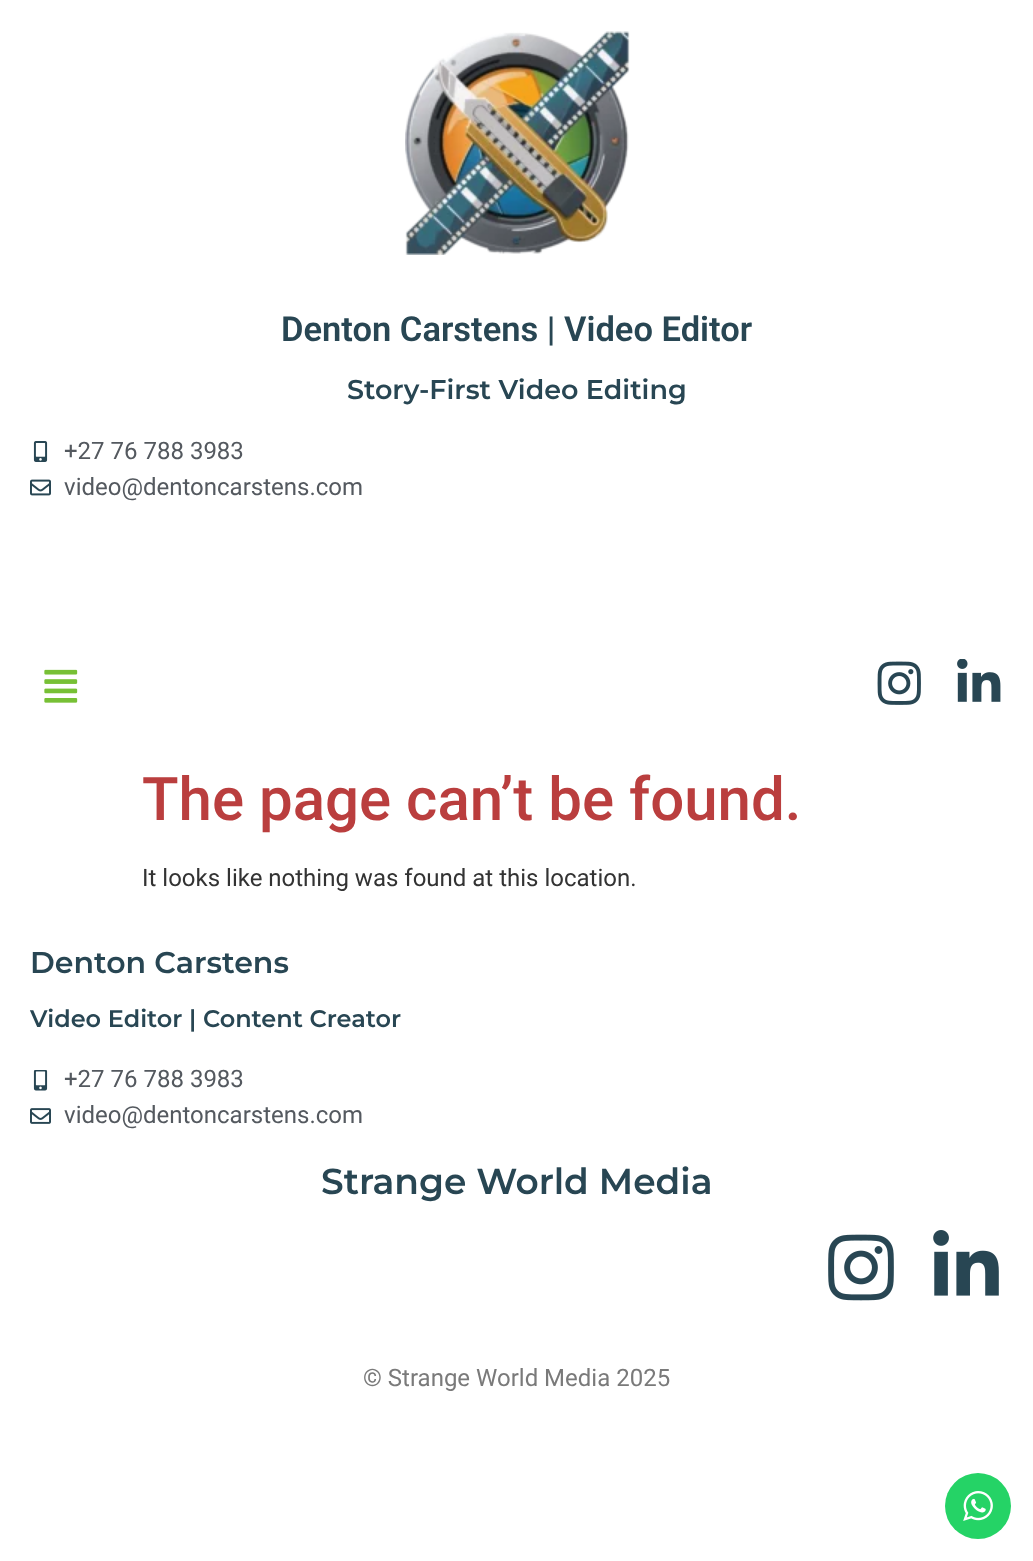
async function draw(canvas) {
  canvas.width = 1033;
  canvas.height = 1561;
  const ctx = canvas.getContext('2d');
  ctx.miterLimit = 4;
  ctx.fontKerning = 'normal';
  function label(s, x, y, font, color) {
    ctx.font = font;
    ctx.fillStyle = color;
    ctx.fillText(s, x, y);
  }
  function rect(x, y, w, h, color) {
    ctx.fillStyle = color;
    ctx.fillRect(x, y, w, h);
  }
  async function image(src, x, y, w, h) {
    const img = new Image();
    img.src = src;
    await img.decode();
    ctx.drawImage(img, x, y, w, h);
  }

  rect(0, 0, 1033, 1561, '#fff');
  await image('assets/img1.png', 405, 31, 225, 224);
  label('Denton Carstens | Video Editor', 281, 341, '600 34.5px Roboto', '#284653');
  label('Story-First Video Editing', 347, 399, '600 27px Montserrat', '#284653');
  await image('assets/img2.png', 33, 441, 15, 21);
  label('+27 76 788 3983', 64, 459, '24px Roboto', '#54595f');
  await image('assets/img3.png', 30, 479, 21, 17);
  label('video@dentoncarstens.com', 64, 495, '24px Roboto', '#54595f');
  await image('assets/img4.png', 44, 669, 34, 34);
  await image('assets/img5.png', 877, 661, 44, 44);
  await image('assets/img6.png', 957, 659, 44, 43);
  label('The page can’t be found.', 142, 820, '500 60px Roboto', '#ba3e3e');
  label('It looks like nothing was found at this location.', 142, 886, '24px Roboto', '#333');
  label('Denton Carstens', 30, 973, '600 30px Montserrat', '#284653');
  label('Video Editor | Content Creator', 30, 1027, '600 24px Montserrat', '#284653');
  await image('assets/img7.png', 33, 1070, 15, 21);
  label('+27 76 788 3983', 64, 1087, '24px Roboto', '#54595f');
  await image('assets/img8.png', 30, 1108, 21, 16);
  label('video@dentoncarstens.com', 64, 1123, '24px Roboto', '#54595f');
  label('Strange World Media', 321, 1194, '600 36px Montserrat', '#284653');
  await image('assets/img9.png', 828, 1234, 66, 67);
  await image('assets/img10.png', 933, 1230, 66, 66);
  label('© Strange World Media 2025', 363, 1386, '24px Roboto', '#7a7a7a');
  ctx.fillStyle = '#25d366';
  ctx.beginPath();
  ctx.arc(978, 1506, 33, 0, 2 * Math.PI);
  ctx.fill();
  await image('assets/img11.png', 963, 1491, 30, 30);
}

draw(document.querySelector('canvas'));
